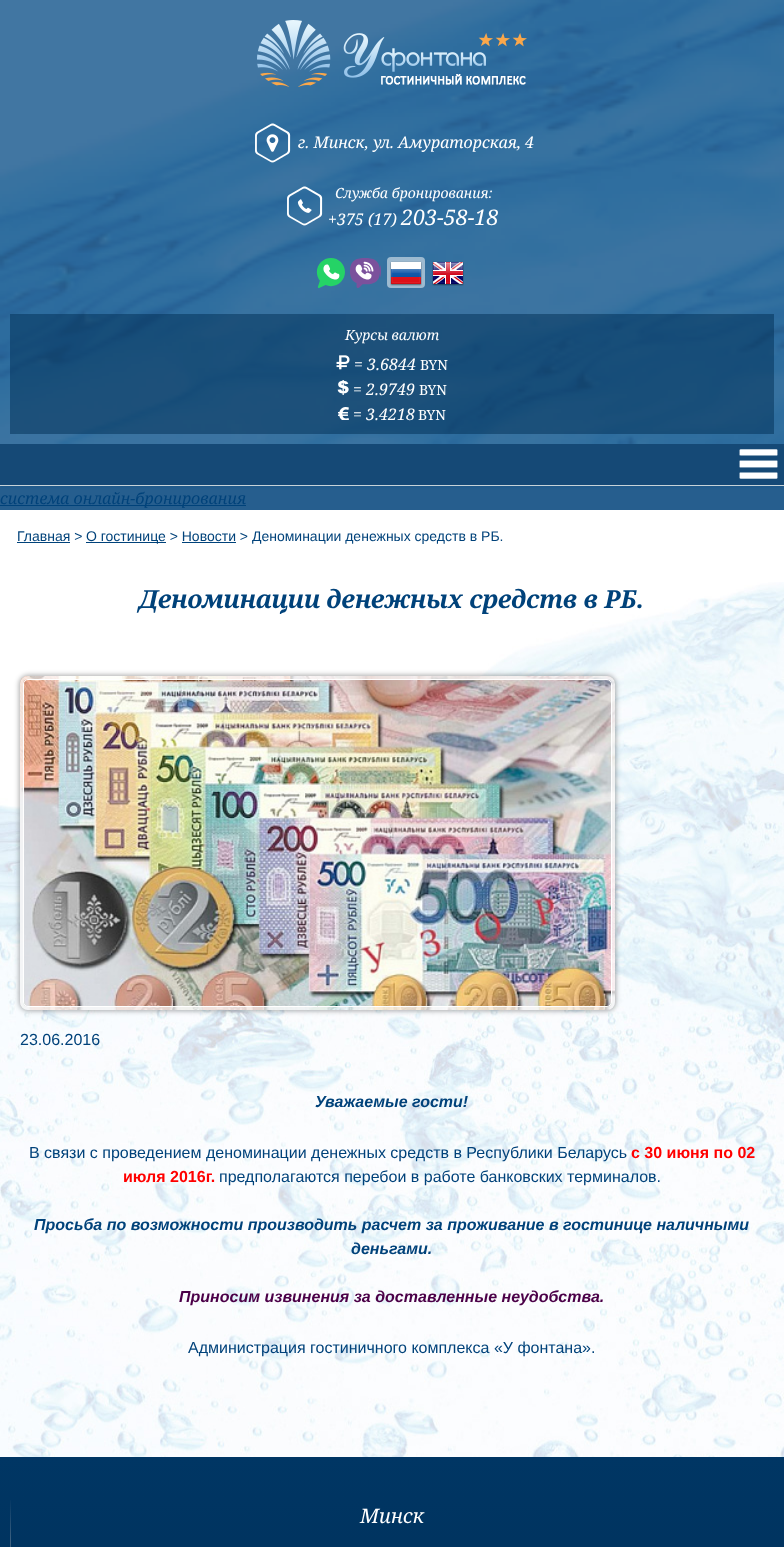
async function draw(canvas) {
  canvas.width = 784;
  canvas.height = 1547;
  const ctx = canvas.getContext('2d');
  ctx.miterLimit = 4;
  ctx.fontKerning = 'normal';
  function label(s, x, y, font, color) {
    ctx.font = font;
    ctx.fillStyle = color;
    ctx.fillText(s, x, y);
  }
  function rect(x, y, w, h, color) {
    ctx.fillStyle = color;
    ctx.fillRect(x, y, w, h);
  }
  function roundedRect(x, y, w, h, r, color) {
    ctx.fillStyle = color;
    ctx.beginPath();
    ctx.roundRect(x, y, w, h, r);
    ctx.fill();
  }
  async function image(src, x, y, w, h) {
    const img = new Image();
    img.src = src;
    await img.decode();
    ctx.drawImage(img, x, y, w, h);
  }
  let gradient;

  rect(0, 0, 784, 1547, '#fff');
  rect(0, 486, 784, 24, '#265e8e');
  ctx.fillStyle = '#00427a40';
  ctx.filter = 'blur(1.5px)';
  ctx.beginPath();
  ctx.rect(0, 445, 784, 42);
  ctx.fill();
  ctx.filter = 'none';
  rect(0, 0, 784, 444, '#2c6798');
  await image('assets/img1.png', 0, 0, 784, 444);
  await image('assets/img2.png', 257, 20, 270, 67);
  await image('assets/img3.png', 255, 123, 36, 40);
  label('г. Минск, ул. Амураторская, 4', 298, 148, 'italic 16px Noto Serif', '#fff');
  await image('assets/img4.png', 287, 186, 36, 40);
  label('Служба бронирования:', 335, 198, 'italic 14px Noto Serif', '#fff');
  label('+375 (17)', 328, 225, 'italic 16px Noto Serif', '#fff');
  label('203-58-18', 401, 225, 'italic 21.5px Noto Serif', '#fff');
  await image('assets/img5.png', 316, 258, 29, 30);
  await image('assets/img6.png', 350, 258, 31, 30);
  roundedRect(387, 257, 38, 31, 4, '#9dbad0');
  await image('assets/img7.png', 390, 261, 32, 25);
  await image('assets/img8.png', 432, 261, 32, 25);
  rect(10, 314, 764, 120, '#002d5380');
  label('Курсы валют', 345, 340, 'italic 14px Noto Serif', '#fff');
  await image('assets/img9.png', 336, 355, 14, 15);
  label('= 3.6844', 354, 370, 'italic 16px Noto Serif', '#fff');
  label('BYN', 420, 370, '14px Noto Serif', '#fff');
  await image('assets/img10.png', 337, 380, 12, 15);
  label('= 2.9749', 353, 395, 'italic 16px Noto Serif', '#fff');
  label('BYN', 419, 395, '14px Noto Serif', '#fff');
  await image('assets/img11.png', 338, 407, 11, 13);
  label('= 3.4218', 353, 420, 'italic 16px Noto Serif', '#fff');
  label('BYN', 418, 420, '14px Noto Serif', '#fff');
  rect(0, 485, 784, 1, '#c7d3d8');
  rect(0, 444, 784, 41, '#154976');
  await image('assets/img12.png', 739, 449, 39, 30);
  rect(0, 505, 246, 1, '#00427a');
  label('система онлайн-бронирования', 0, 504, 'italic 16px Noto Serif', '#00427a');
  await image('assets/img13.png', 0, 582, 784, 875);
  label('Главная >', 17, 541, '14px Liberation Sans', '#00427a');
  rect(17, 542, 53, 1, '#00427a');
  rect(86, 542, 80, 1, '#00427a');
  label('О гостинице > Новости > Деноминации денежных средств в РБ.', 86, 541, '14px Liberation Sans', '#00427a');
  rect(182, 542, 54, 1, '#00427a');
  label('Деноминации денежных средств в РБ.', 139, 608, 'italic bold 25px Noto Serif', '#00427a');
  ctx.fillStyle = '#00000054';
  ctx.filter = 'blur(2.5px)';
  ctx.beginPath();
  ctx.roundRect(19, 675, 597, 336, 9);
  ctx.fill();
  ctx.filter = 'none';
  await image('assets/img14.png', 20, 676, 595, 334);
  ctx.beginPath();
  ctx.roundRect(21.5, 677.5, 592, 331, 6.5);
  ctx.strokeStyle = '#ffffffb3';
  ctx.lineWidth = 3;
  ctx.stroke();
  ctx.beginPath();
  ctx.roundRect(23.5, 679.5, 588, 327, 4.5);
  ctx.strokeStyle = '#fff';
  ctx.lineWidth = 1;
  ctx.stroke();
  label('23.06.2016', 20, 1045, '16px Liberation Sans', '#00427a');
  label('Уважаемые гости!', 315, 1107, 'italic bold 16px Liberation Sans', '#00427a');
  label('В связи с проведением деноминации денежных средств в Республики Беларусь', 29, 1158, '16px Liberation Sans', '#00427a');
  label('с 30 июня по 02', 631, 1158, 'bold 16px Liberation Sans', '#f00');
  label('июля 2016г.', 123, 1182, 'bold 16px Liberation Sans', '#f00');
  label('предполагаются перебои в работе банковских терминалов.', 219, 1182, '16px Liberation Sans', '#00427a');
  label('Просьба по возможности производить расчет за проживание в гостинице наличными', 34, 1230, 'italic bold 16px Liberation Sans', '#00427a');
  label('деньгами.', 351, 1254, 'italic bold 16px Liberation Sans', '#00427a');
  label('Приносим извинения за доставленные неудобства.', 179, 1302, 'italic bold 16px Liberation Sans', '#4b0048');
  label('Администрация гостиничного комплекса «У фонтана».', 188, 1353, '16px Liberation Sans', '#00427a');
  gradient = ctx.createLinearGradient(392, 1457, 392, 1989);
  gradient.addColorStop(0, '#003664');
  gradient.addColorStop(1, '#00294c');
  ctx.fillStyle = gradient;
  ctx.fillRect(0, 1457, 784, 90);
  await image('assets/img15.png', 10, 1500, 1, 47);
  label('Минск', 360, 1523, 'italic 20px Noto Serif', '#fff');
}

draw(document.querySelector('canvas'));
